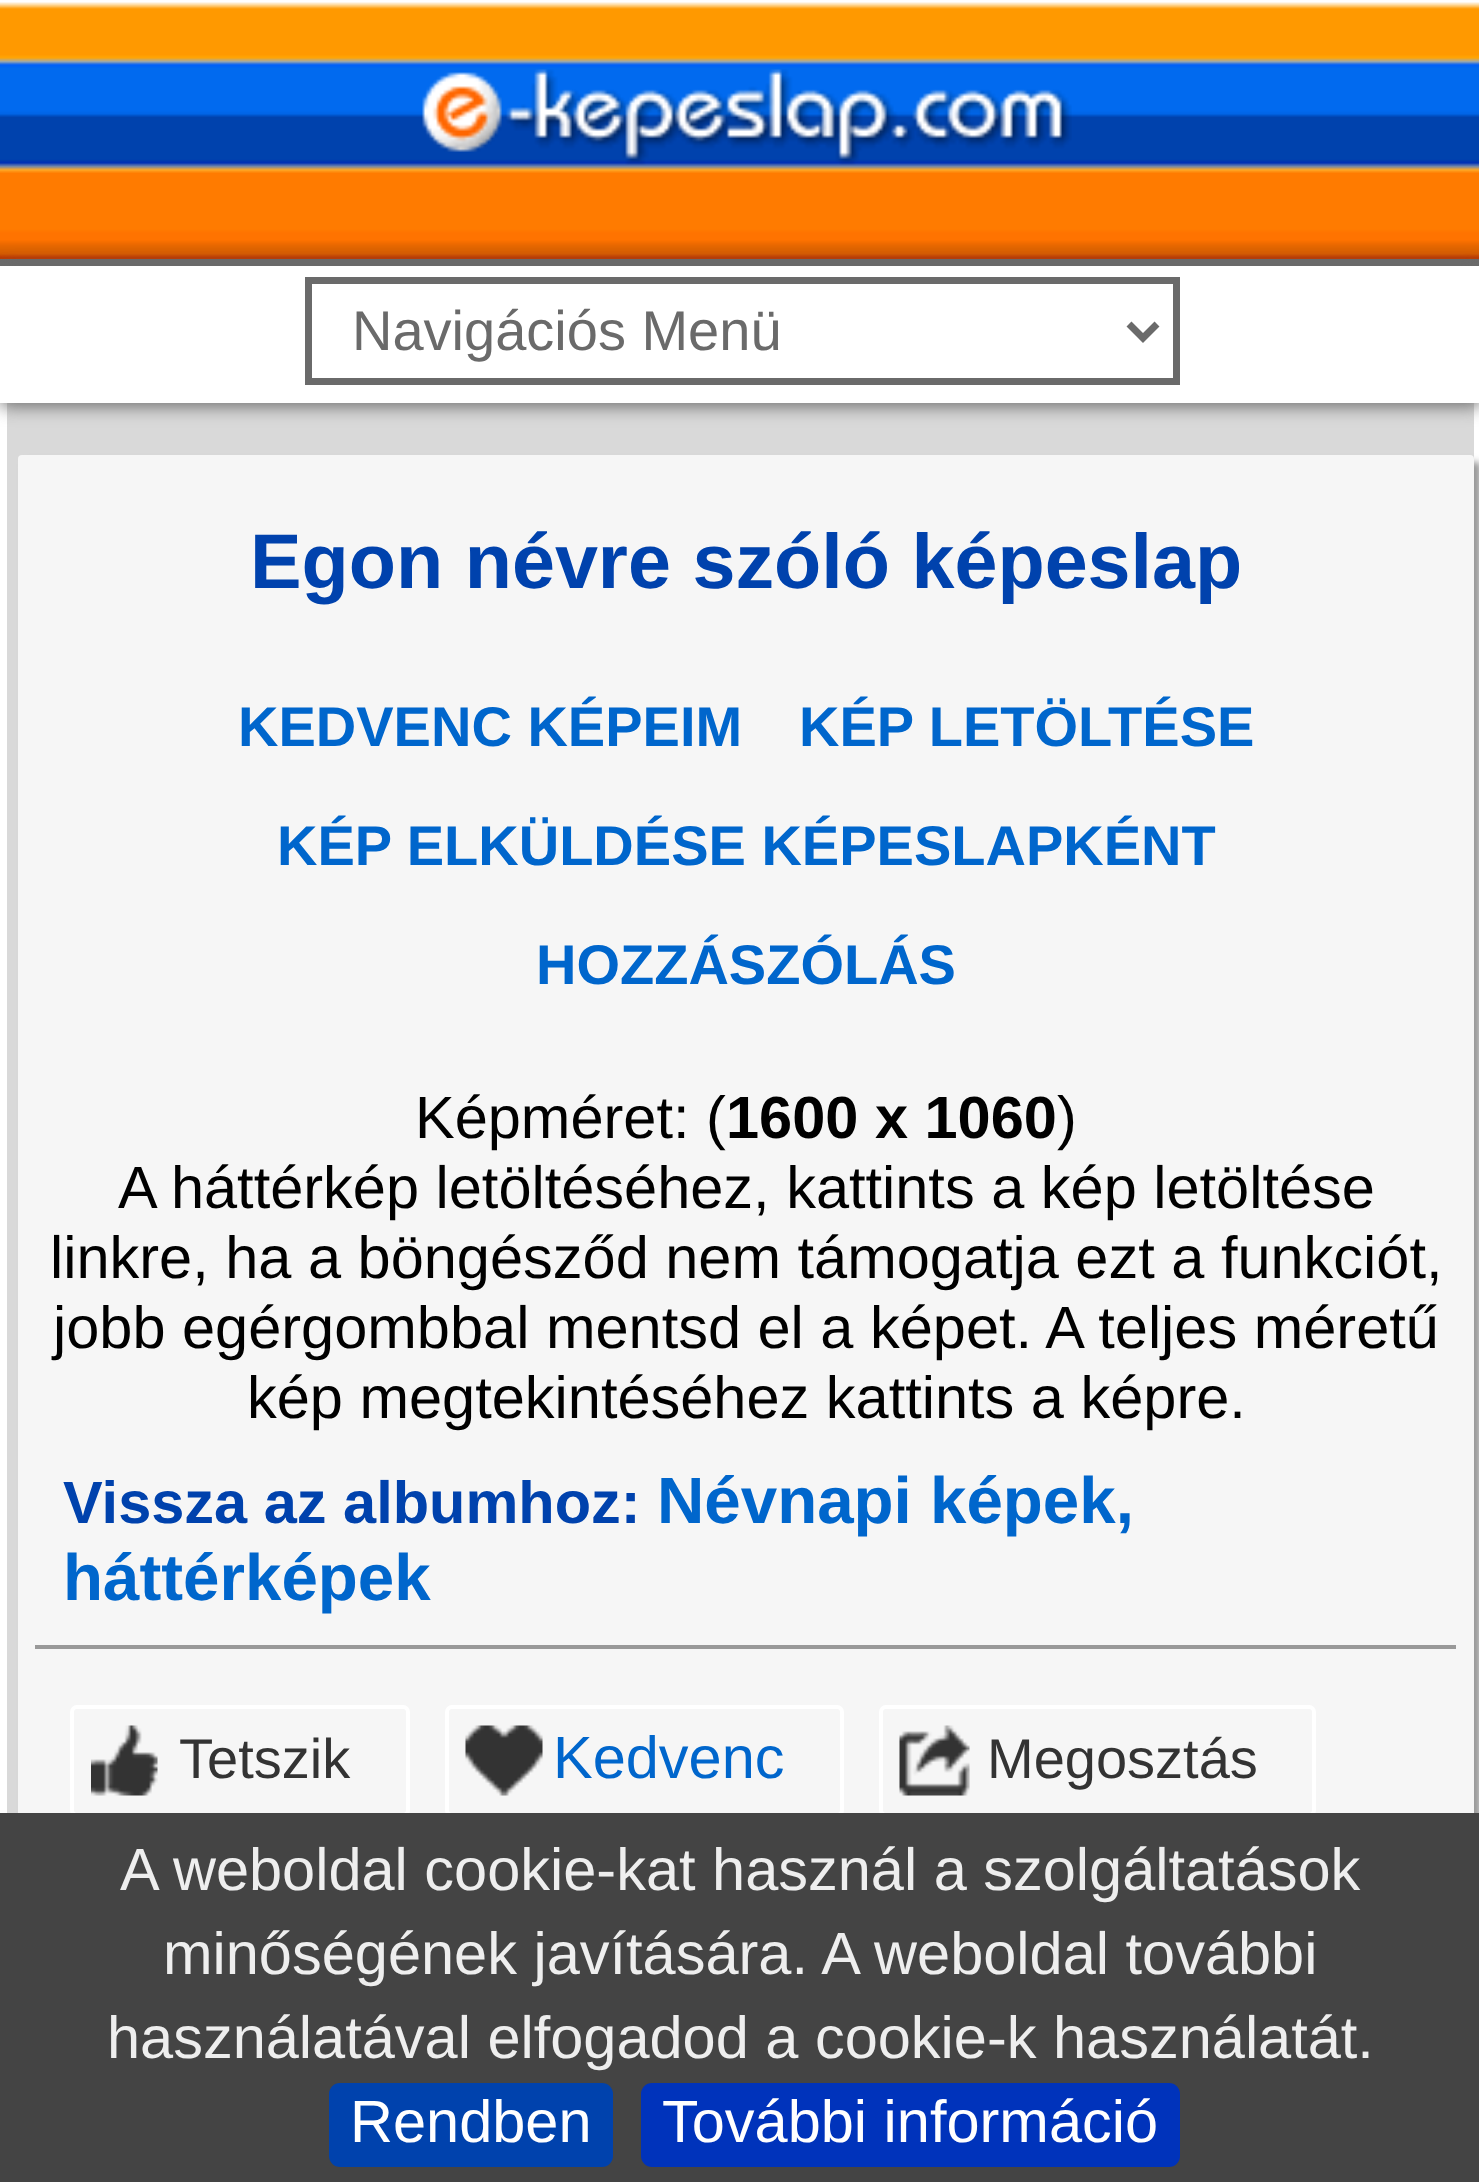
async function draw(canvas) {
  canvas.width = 1479;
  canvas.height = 2182;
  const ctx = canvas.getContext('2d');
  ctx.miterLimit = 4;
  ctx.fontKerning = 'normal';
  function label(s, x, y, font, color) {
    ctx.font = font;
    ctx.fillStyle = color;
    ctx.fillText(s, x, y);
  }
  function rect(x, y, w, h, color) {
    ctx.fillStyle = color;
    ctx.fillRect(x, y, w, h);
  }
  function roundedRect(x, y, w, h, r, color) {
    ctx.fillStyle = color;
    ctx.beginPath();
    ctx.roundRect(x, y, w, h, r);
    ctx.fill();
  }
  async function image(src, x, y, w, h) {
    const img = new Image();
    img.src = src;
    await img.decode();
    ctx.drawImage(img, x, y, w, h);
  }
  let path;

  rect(0, 0, 1479, 2182, '#6a6a6a');
  await image('assets/img1.png', 0, 0, 1479, 259);
  await image('assets/img2.png', 422, 69, 650, 96);
  rect(7, 403, 1467, 1410, '#d9d9d9');
  rect(1474, 403, 5, 1410, '#fff');
  rect(0, 403, 7, 1410, '#fff');
  ctx.fillStyle = '#6a6a6a';
  ctx.filter = 'blur(9px)';
  ctx.beginPath();
  ctx.rect(0, 270, 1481, 136);
  ctx.fill();
  ctx.filter = 'none';
  rect(0, 266, 1479, 137, '#fff');
  ctx.strokeStyle = '#6a6a6a';
  ctx.lineWidth = 7;
  ctx.strokeRect(308.5, 280.5, 868, 101);
  path = new Path2D('M1129 324L1143 338L1157 324');
  ctx.stroke(path);
  label('Navigációs Menü', 352, 350, '56px Liberation Sans', '#6a6a6a');
  ctx.fillStyle = '#999';
  ctx.filter = 'blur(3.5px)';
  ctx.beginPath();
  ctx.roundRect(25, 462, 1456, 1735, 4);
  ctx.fill();
  ctx.filter = 'none';
  roundedRect(18, 455, 1456, 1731, 4, '#f6f6f6');
  label('Egon névre szóló képeslap', 250, 588, 'bold 77.3px Liberation Sans', '#0042ad');
  label('KEDVENC KÉPEIM', 238, 746, 'bold 56px Liberation Sans', '#06c');
  label('KÉP LETÖLTÉSE', 799, 746, 'bold 56px Liberation Sans', '#06c');
  label('KÉP ELKÜLDÉSE KÉPESLAPKÉNT', 277, 865, 'bold 56px Liberation Sans', '#06c');
  label('HOZZÁSZÓLÁS', 536, 984, 'bold 56px Liberation Sans', '#06c');
  label('Képméret: (', 415, 1138, '59.5px Liberation Sans', '#000');
  label('1600 x 1060', 726, 1138, 'bold 59.5px Liberation Sans', '#000');
  label(')', 1057, 1138, '59.5px Liberation Sans', '#000');
  label('A háttérkép letöltéséhez, kattints a kép letöltése', 118, 1208, '59.5px Liberation Sans', '#000');
  label('linkre, ha a böngésződ nem támogatja ezt a funkciót,', 50, 1278, '59.5px Liberation Sans', '#000');
  label('jobb egérgombbal mentsd el a képet. A teljes méretű', 53, 1348, '59.5px Liberation Sans', '#000');
  label('kép megtekintéséhez kattints a képre.', 247, 1418, '59.5px Liberation Sans', '#000');
  label('Vissza az albumhoz:', 63, 1523, 'bold 59.5px Liberation Sans', '#0042ad');
  label('Névnapi képek,', 657, 1523, 'bold 65.5px Liberation Sans', '#06c');
  label('háttérképek', 63, 1600, 'bold 65.5px Liberation Sans', '#06c');
  rect(35, 1645, 1421, 4, '#999');
  await image('assets/img3.png', 91, 1725, 67, 71);
  ctx.beginPath();
  ctx.roundRect(72, 1707, 336, 108, 5);
  ctx.strokeStyle = '#fff';
  ctx.lineWidth = 4;
  ctx.stroke();
  label('Tetszik', 179, 1778, '56px Liberation Sans', '#333');
  await image('assets/img4.png', 465, 1725, 78, 71);
  ctx.beginPath();
  ctx.roundRect(447, 1707, 395, 108, 5);
  ctx.stroke();
  label('Kedvenc', 553, 1778, '59.5px Liberation Sans', '#06c');
  await image('assets/img5.png', 899, 1725, 71, 71);
  ctx.beginPath();
  ctx.roundRect(881, 1707, 433, 108, 5);
  ctx.stroke();
  label('Megosztás', 987, 1778, '56px Liberation Sans', '#333');
  rect(0, 1813, 1479, 369, '#444');
  label('A weboldal cookie-kat használ a szolgáltatások', 120, 1890, '59.5px Liberation Sans', '#eee');
  label('minőségének javítására. A weboldal további', 163, 1974, '59.5px Liberation Sans', '#eee');
  label('használatával elfogadod a cookie-k használatát.', 107, 2058, '59.5px Liberation Sans', '#eee');
  roundedRect(329, 2083, 284, 84, 11, '#0042ad');
  label('Rendben', 350, 2142, '59.5px Liberation Sans', '#fff');
  roundedRect(641, 2083, 539, 84, 11, '#03b');
  label('További információ', 662, 2142, '59.5px Liberation Sans', '#fff');
}

draw(document.querySelector('canvas'));
